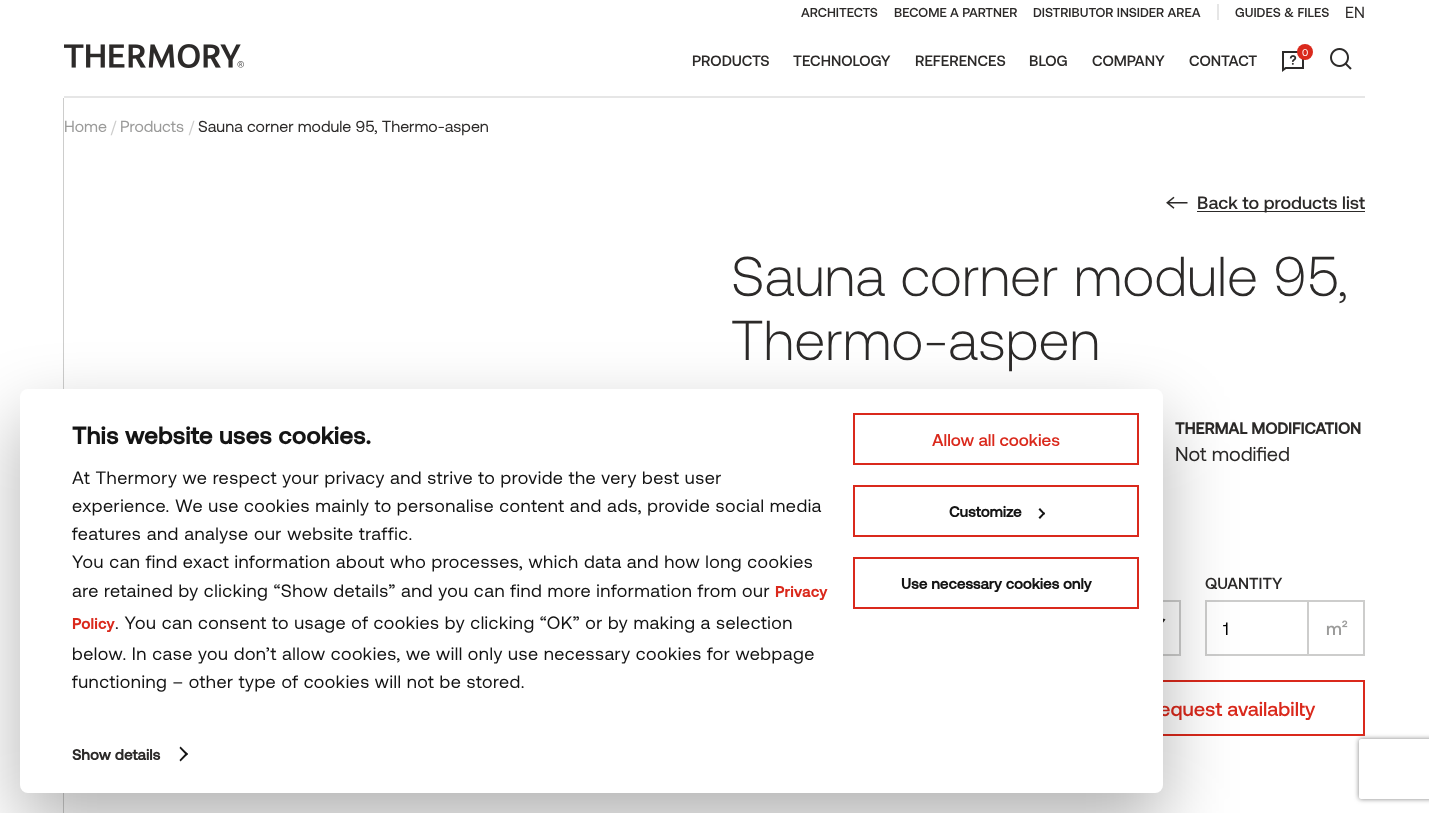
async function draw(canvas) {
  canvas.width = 1429;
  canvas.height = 813;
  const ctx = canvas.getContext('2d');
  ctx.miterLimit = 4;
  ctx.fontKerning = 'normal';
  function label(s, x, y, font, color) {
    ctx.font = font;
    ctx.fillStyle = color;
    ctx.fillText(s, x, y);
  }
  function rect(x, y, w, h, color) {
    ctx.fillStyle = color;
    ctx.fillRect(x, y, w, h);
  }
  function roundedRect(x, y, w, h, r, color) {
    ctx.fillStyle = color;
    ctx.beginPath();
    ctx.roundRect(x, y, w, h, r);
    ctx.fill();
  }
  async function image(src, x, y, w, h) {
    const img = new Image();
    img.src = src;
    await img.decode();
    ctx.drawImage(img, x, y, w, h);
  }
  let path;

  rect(0, 0, 1429, 813, '#fff');
  label('ARCHITECTS', 801, 17, '500 13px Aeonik', '#2c2a29');
  label('BECOME A PARTNER', 894, 17, '500 13px Aeonik', '#2c2a29');
  label('DISTRIBUTOR INSIDER AREA', 1033, 17, '500 13px Aeonik', '#2c2a29');
  rect(1217, 4, 2, 16, '#e6e6e6');
  label('GUIDES & FILES', 1235, 17, '500 13px Aeonik', '#2c2a29');
  label('EN', 1345, 18, '16px Aeonik', '#2c2a29');
  rect(64, 96, 1301, 2, '#e6e6e6');
  await image('assets/img1.png', 64, 44, 180, 24);
  await image('assets/img2.png', 1282, 51, 22, 21);
  ctx.fillStyle = '#da291c';
  ctx.beginPath();
  ctx.arc(1305, 52, 8, 0, 2 * Math.PI);
  ctx.fill();
  label('0', 1302, 56, '10px Aeonik', '#fff');
  await image('assets/img3.png', 1330, 48, 22, 22);
  label('PRODUCTS', 692, 66, '500 15px Aeonik', '#2c2a29');
  label('TECHNOLOGY', 793, 66, '500 15px Aeonik', '#2c2a29');
  label('REFERENCES', 915, 66, '500 15px Aeonik', '#2c2a29');
  label('BLOG', 1029, 66, '500 15px Aeonik', '#2c2a29');
  label('COMPANY', 1092, 66, '500 15px Aeonik', '#2c2a29');
  label('CONTACT', 1189, 66, '500 15px Aeonik', '#2c2a29');
  rect(63, 98, 1, 715, '#cdcdcc');
  label('Home', 64, 132, '16px Aeonik', '#9b9b9a');
  label('/', 111, 132, '16px Aeonik', '#cdcdcc');
  label('Products', 120, 132, '16px Aeonik', '#9b9b9a');
  label('/', 189, 132, '16px Aeonik', '#cdcdcc');
  label('Sauna corner module 95, Thermo-aspen', 198, 132, '16px Aeonik', '#2c2a29');
  await image('assets/img4.png', 1166, 196, 22, 13);
  rect(1197, 211, 168, 1, '#2c2a29');
  label('Back to products list', 1197, 209, '500 18px Aeonik', '#2c2a29');
  label('Sauna corner module 95,', 731, 296, '300 56px Aeonik', '#2c2a29');
  label('Thermo-aspen', 731, 360, '300 56px Aeonik', '#2c2a29');
  label('THERMAL MODIFICATION', 1175, 434, 'bold 16px Aeonik', '#2c2a29');
  label('Not modified', 1175, 461, '20px Aeonik', '#2c2a29');
  ctx.strokeStyle = '#cdcdcc';
  ctx.lineWidth = 2;
  ctx.strokeRect(732, 601, 448, 54);
  path = new Path2D('M1151 638.5L1165.5 619.5L1163.5 618.5L1151 635.5L1138.5 618.5L1136.5 619.5Z');
  ctx.fill(path);
  label('QUANTITY', 1205, 589, '500 16px Aeonik', '#2c2a29');
  ctx.strokeRect(1206, 601, 158, 54);
  label('1', 1223, 635, '18px Aeonik', '#000');
  rect(1307, 600, 2, 56, '#cdcdcc');
  await image('assets/img5.png', 1326, 620, 22, 15);
  ctx.strokeStyle = '#da291c';
  ctx.strokeRect(1098, 681, 266, 54);
  label('equest availabilty', 1159, 716, '500 20px Aeonik', '#da291c');
  ctx.fillStyle = '#0000004d';
  ctx.filter = 'blur(35px)';
  ctx.beginPath();
  ctx.roundRect(20, 419, 1143, 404, 8);
  ctx.fill();
  ctx.filter = 'none';
  roundedRect(20, 389, 1143, 404, 8, '#fff');
  ctx.letterSpacing = '0.25px';
  label('This website uses cookies.', 72, 444, 'bold 24px Aeonik', '#141414');
  ctx.letterSpacing = '0.5px';
  label('At Thermory we respect your privacy and strive to provide the very best user', 72, 484, '18px Aeonik', '#141414');
  label('experience. We use cookies mainly to personalise content and ads, provide social media', 72, 512, '18px Aeonik', '#141414');
  ctx.wordSpacing = '0.25px';
  label('features and analyse our website traffic.', 72, 540, '18px Aeonik', '#141414');
  ctx.wordSpacing = '0px';
  label('You can find exact information about who processes, which data and how long cookies', 72, 568, '18px Aeonik', '#141414');
  label('are retained by clicking “Show details” and you can find more information from our', 72, 597, '18px Aeonik', '#141414');
  label('Privacy', 775, 597, 'bold 15px Aeonik', '#da291c');
  label('Policy', 72, 629, 'bold 15px Aeonik', '#da291c');
  label('. You can consent to usage of cookies by clicking “OK” or by making a selection', 115, 629, '18px Aeonik', '#141414');
  label('below. In case you don’t allow cookies, we will only use necessary cookies for webpage', 72, 660, '18px Aeonik', '#141414');
  label('functioning – other type of cookies will not be stored.', 72, 688, '18px Aeonik', '#141414');
  ctx.letterSpacing = '0.1px';
  label('Show details', 72, 760, 'bold 15px Aeonik', '#2c2a29');
  ctx.fillStyle = '#141414';
  path = new Path2D('M180.5 746.5L188 754L186.5 755.5L179.5 748Z');
  ctx.fill(path);
  path = new Path2D('M186.5 752.5L188 754L180.5 761.5L179.5 760Z');
  ctx.fill(path);
  ctx.strokeRect(854, 414, 284, 50);
  ctx.letterSpacing = '0px';
  label('Allow all cookies', 932, 446, '500 17px Aeonik', '#da291c');
  ctx.strokeRect(854, 486, 284, 50);
  label('Customize', 949, 517, 'bold 15px Aeonik', '#141414');
  path = new Path2D('M1040 508L1045 513.5L1044 515L1038.5 509.5Z');
  ctx.fill(path);
  path = new Path2D('M1044 512L1045 513.5L1040 519L1038.5 517.5Z');
  ctx.fill(path);
  ctx.strokeRect(854, 558, 284, 50);
  label('Use necessary cookies only', 901, 589, 'bold 15px Aeonik', '#141414');
  ctx.save();
  path = new Path2D('M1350 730H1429V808H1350ZM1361 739H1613C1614 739 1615 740 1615 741V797C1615 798 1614 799 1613 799H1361C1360 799 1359 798 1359 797V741C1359 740 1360 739 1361 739Z');
  ctx.clip(path, 'evenodd');
  ctx.fillStyle = '#808080';
  ctx.filter = 'blur(2.5px)';
  ctx.beginPath();
  ctx.roundRect(1359, 739, 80, 60, 2);
  ctx.fill();
  ctx.filter = 'none';
  ctx.restore();
}

draw(document.querySelector('canvas'));
